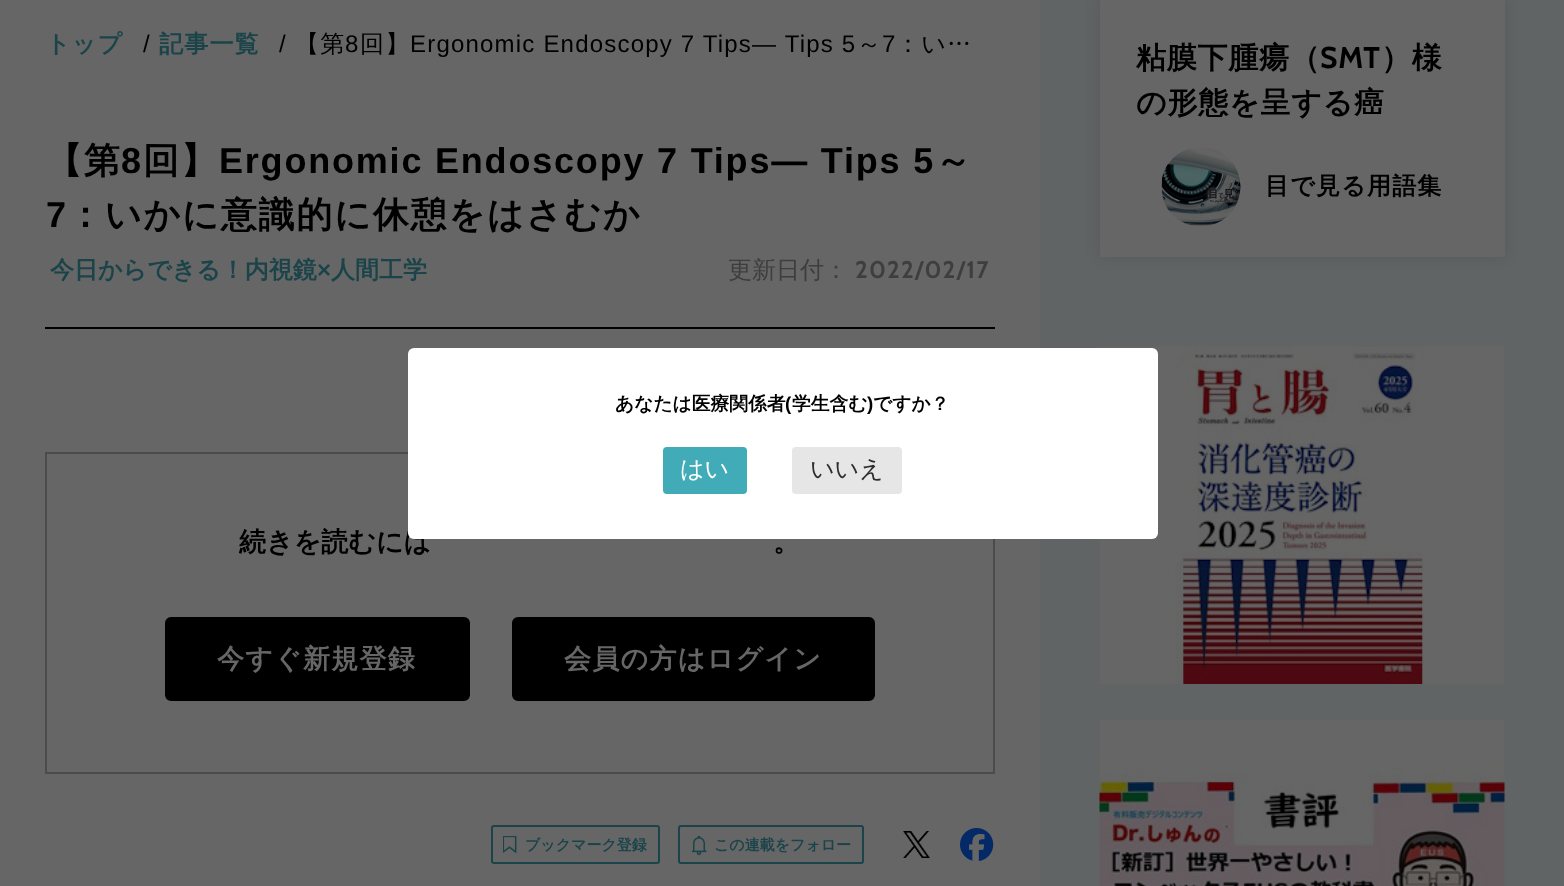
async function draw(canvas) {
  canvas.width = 1564;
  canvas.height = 886;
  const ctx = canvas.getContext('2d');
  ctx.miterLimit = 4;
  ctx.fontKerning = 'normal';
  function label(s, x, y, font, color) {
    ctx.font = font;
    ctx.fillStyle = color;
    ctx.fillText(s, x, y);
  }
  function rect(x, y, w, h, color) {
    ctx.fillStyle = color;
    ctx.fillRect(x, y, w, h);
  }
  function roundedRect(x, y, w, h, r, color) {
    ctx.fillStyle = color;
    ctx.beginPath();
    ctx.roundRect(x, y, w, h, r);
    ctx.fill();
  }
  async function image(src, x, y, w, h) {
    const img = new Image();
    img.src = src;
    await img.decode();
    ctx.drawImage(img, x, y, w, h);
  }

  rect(0, 0, 1564, 886, '#666');
  ctx.letterSpacing = '1.2px';
  label('トップ', 46, 52, 'bold 24px WenQuanYi Zen Hei', '#1a444a');
  label('/', 143, 52, '24px Liberation Sans', '#000');
  label('記事一覧', 159, 52, 'bold 24px WenQuanYi Zen Hei', '#1a444a');
  label('/', 279, 52, '24px Liberation Sans', '#000');
  label('【第', 295, 52, '500 24px WenQuanYi Zen Hei', '#000');
  label('8', 345, 52, '24px Liberation Sans', '#000');
  label('回】', 360, 52, '500 24px WenQuanYi Zen Hei', '#000');
  label('Ergonomic Endoscopy 7 Tips― Tips 5', 410, 52, '24px Liberation Sans', '#000');
  label('～', 857, 52, '500 24px WenQuanYi Zen Hei', '#000');
  label('7', 882, 52, '24px Liberation Sans', '#000');
  label('：い…', 896, 52, '500 24px WenQuanYi Zen Hei', '#000');
  rect(45, 327, 950, 2, '#000');
  ctx.letterSpacing = '1.8px';
  label('【第', 46, 173, 'bold 36px WenQuanYi Zen Hei', '#000');
  label('8', 121, 173, 'bold 36px Liberation Sans', '#000');
  label('回】', 143, 173, 'bold 36px WenQuanYi Zen Hei', '#000');
  label('Ergonomic Endoscopy 7 Tips― Tips 5', 219, 173, 'bold 36px Liberation Sans', '#000');
  label('～', 935, 173, 'bold 36px WenQuanYi Zen Hei', '#000');
  label('7', 46, 227, 'bold 36px Liberation Sans', '#000');
  label('：いかに意識的に休憩をはさむか', 67, 227, 'bold 36px WenQuanYi Zen Hei', '#000');
  ctx.letterSpacing = '0px';
  label('今日からできる！内視鏡', 50, 278, 'bold 24px WenQuanYi Zen Hei', '#1a444a');
  label('×', 317, 278, 'bold 24px Liberation Sans', '#1a444a');
  label('人間工学', 331, 278, 'bold 24px WenQuanYi Zen Hei', '#1a444a');
  label('更新日付：', 728, 278, '500 24px WenQuanYi Zen Hei', '#3e3e3e');
  ctx.letterSpacing = '1.2px';
  label('2022/02/17', 855, 278, 'bold 24px Cabin', '#3e3e3e');
  ctx.strokeStyle = '#4b4b4b';
  ctx.lineWidth = 2;
  ctx.strokeRect(46, 453, 948, 320);
  ctx.letterSpacing = '0px';
  label('続きを読むには', 239, 551, 'bold 27px WenQuanYi Zen Hei', '#000');
  label('。', 773, 551, 'bold 27px WenQuanYi Zen Hei', '#000');
  ctx.beginPath();
  ctx.roundRect(166.5, 618.5, 302, 81, 4.5);
  ctx.fill();
  ctx.strokeStyle = '#000';
  ctx.lineWidth = 3;
  ctx.stroke();
  ctx.letterSpacing = '1.25px';
  label('今すぐ新規登録', 217, 668, 'bold 27px WenQuanYi Zen Hei', '#666');
  ctx.fillStyle = '#000';
  ctx.beginPath();
  ctx.roundRect(513.5, 618.5, 360, 81, 4.5);
  ctx.fill();
  ctx.stroke();
  label('会員の方はログイン', 564, 668, 'bold 27px WenQuanYi Zen Hei', '#666');
  ctx.beginPath();
  ctx.roundRect(492, 826, 167, 37, 2);
  ctx.strokeStyle = '#1a444a';
  ctx.lineWidth = 2;
  ctx.stroke();
  await image('assets/img1.png', 503, 836, 14, 18);
  ctx.letterSpacing = '0px';
  label('ブックマーク登録', 525, 850, 'bold 15px WenQuanYi Zen Hei', '#1a444a');
  ctx.beginPath();
  ctx.roundRect(679, 826, 184, 37, 2);
  ctx.stroke();
  await image('assets/img2.png', 692, 836, 15, 19);
  label('この連載をフォロー', 714, 850, 'bold 15px WenQuanYi Zen Hei', '#1a444a');
  await image('assets/img3.png', 903, 831, 27, 27);
  await image('assets/img4.png', 960, 828, 34, 33);
  rect(1040, 0, 524, 886, '#606464');
  ctx.fillStyle = '#0000001a';
  ctx.filter = 'blur(7.5px)';
  ctx.beginPath();
  ctx.rect(1100, -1, 405, 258);
  ctx.fill();
  ctx.filter = 'none';
  rect(1100, 0, 405, 257, '#666');
  ctx.letterSpacing = '0.75px';
  label('粘膜下腫瘍（', 1136, 68, 'bold 30px WenQuanYi Zen Hei', '#000');
  label('SMT', 1320, 68, 'bold 30px Cabin', '#000');
  label('）様', 1381, 68, 'bold 30px WenQuanYi Zen Hei', '#000');
  label('の形態を呈する癌', 1136, 113, 'bold 30px WenQuanYi Zen Hei', '#000');
  await image('assets/img5.png', 1161, 148, 80, 79);
  ctx.letterSpacing = '1.2px';
  label('目で見る用語集', 1265, 194, 'bold 24px WenQuanYi Zen Hei', '#000');
  await image('assets/img6.png', 1099, 346, 406, 338);
  await image('assets/img7.png', 1099, 720, 406, 166);
  roundedRect(408, 348, 750, 191, 6, '#fff');
  ctx.letterSpacing = '0px';
  label('あなたは医療関係者', 615, 410, 'bold 18.75px WenQuanYi Zen Hei', '#000');
  label('(', 785, 410, 'bold 18.75px Liberation Sans', '#000');
  label('学生含む', 792, 410, 'bold 18.75px WenQuanYi Zen Hei', '#000');
  label(')', 867, 410, 'bold 18.75px Liberation Sans', '#000');
  label('ですか？', 873, 410, 'bold 18.75px WenQuanYi Zen Hei', '#000');
  roundedRect(663, 447, 84, 47, 4, '#41abb8');
  label('はい', 680, 477, '500 24px WenQuanYi Zen Hei', '#fff');
  roundedRect(792, 447, 110, 47, 4, '#e6e6e6');
  label('いいえ', 810, 477, '500 24px WenQuanYi Zen Hei', '#2e2e2e');
}

draw(document.querySelector('canvas'));
